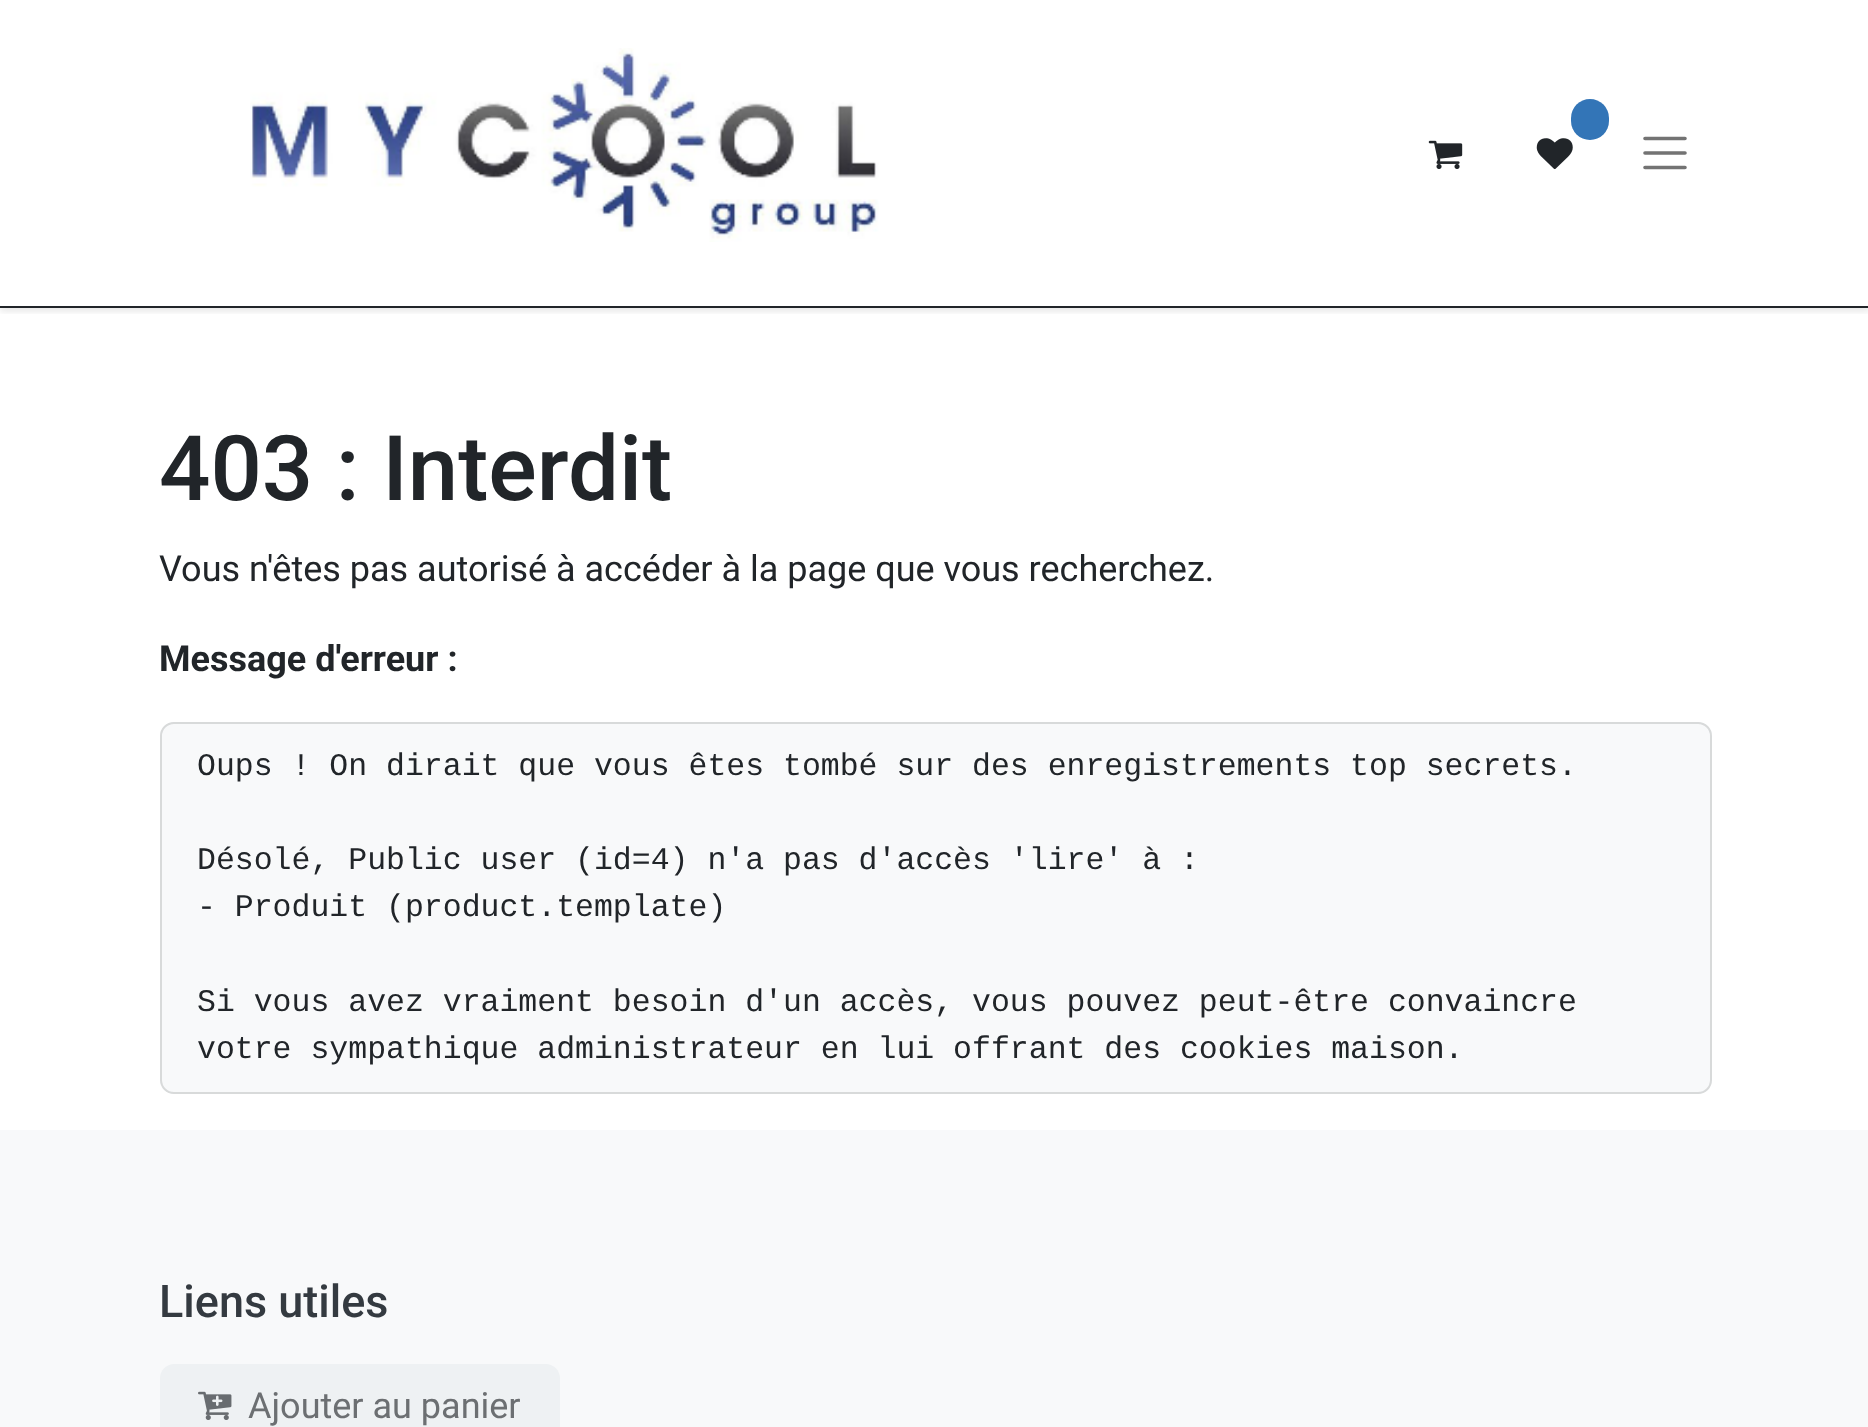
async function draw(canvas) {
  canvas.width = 1868;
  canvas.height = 1427;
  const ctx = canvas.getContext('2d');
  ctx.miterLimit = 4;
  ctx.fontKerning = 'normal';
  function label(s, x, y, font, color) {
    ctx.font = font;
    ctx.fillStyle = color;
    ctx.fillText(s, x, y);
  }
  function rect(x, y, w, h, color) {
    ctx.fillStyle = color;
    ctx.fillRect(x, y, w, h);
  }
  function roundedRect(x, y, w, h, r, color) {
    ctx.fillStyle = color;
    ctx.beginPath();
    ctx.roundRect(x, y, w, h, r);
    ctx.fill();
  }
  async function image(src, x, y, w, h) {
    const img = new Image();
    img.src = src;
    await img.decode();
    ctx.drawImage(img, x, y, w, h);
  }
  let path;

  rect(0, 0, 1868, 1427, '#fff');
  ctx.save();
  ctx.beginPath();
  ctx.rect(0, 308, 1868, 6);
  ctx.clip();
  ctx.fillStyle = '#0000001a';
  ctx.filter = 'blur(3.5px)';
  ctx.beginPath();
  ctx.rect(0, 2, 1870, 309);
  ctx.fill();
  ctx.filter = 'none';
  ctx.restore();
  rect(0, 306, 1868, 2, '#212529');
  await image('assets/img1.png', 250, 48, 629, 194);
  await image('assets/img2.png', 1428, 140, 35, 29);
  await image('assets/img3.png', 1536, 138, 37, 32);
  roundedRect(1571, 99, 38, 41, 19, '#3375b7');
  path = new Path2D('M1645 138.5H1685M1645 153H1685M1645 167.5H1685');
  ctx.strokeStyle = '#737373';
  ctx.lineWidth = 3.6;
  ctx.lineCap = 'round';
  ctx.stroke(path);
  label('403 : Interdit', 159, 500, '500 90.5px Roboto', '#212529');
  label('Vous n\'êtes pas autorisé à accéder à la page que vous recherchez.', 159, 581, '36px Roboto', '#212529');
  label('Message d\'erreur :', 159, 671, 'bold 36px Roboto', '#212529');
  roundedRect(160, 722, 1552, 372, 14, '#f8f9fa');
  ctx.beginPath();
  ctx.roundRect(161, 723, 1550, 370, 13);
  ctx.strokeStyle = '#21252926';
  ctx.lineWidth = 2;
  ctx.stroke();
  label('Oups ! On dirait que vous êtes tombé sur des enregistrements top secrets.', 197, 775, '31.5px Liberation Mono', '#212529');
  label('Désolé, Public user (id=4) n\'a pas d\'accès \'lire\' à :', 197, 869, '31.5px Liberation Mono', '#212529');
  label('- Produit (product.template)', 197, 916, '31.5px Liberation Mono', '#212529');
  label('Si vous avez vraiment besoin d\'un accès, vous pouvez peut-être convaincre', 197, 1011, '31.5px Liberation Mono', '#212529');
  label('votre sympathique administrateur en lui offrant des cookies maison.', 197, 1058, '31.5px Liberation Mono', '#212529');
  rect(0, 1130, 1868, 297, '#f8f9fa');
  label('Liens utiles', 159, 1317, '500 45px Roboto', '#343a40');
  ctx.fillStyle = '#eef1f3';
  path = new Path2D('M174 1364H546C553.5 1364 560 1370.5 560 1378V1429H160V1378C160 1370.5 166.5 1364 174 1364Z');
  ctx.fill(path);
  await image('assets/img4.png', 198, 1391, 34, 29);
  label('Ajouter au panier', 248, 1418, '36px Roboto', '#6c6f72');
}

draw(document.querySelector('canvas'));
